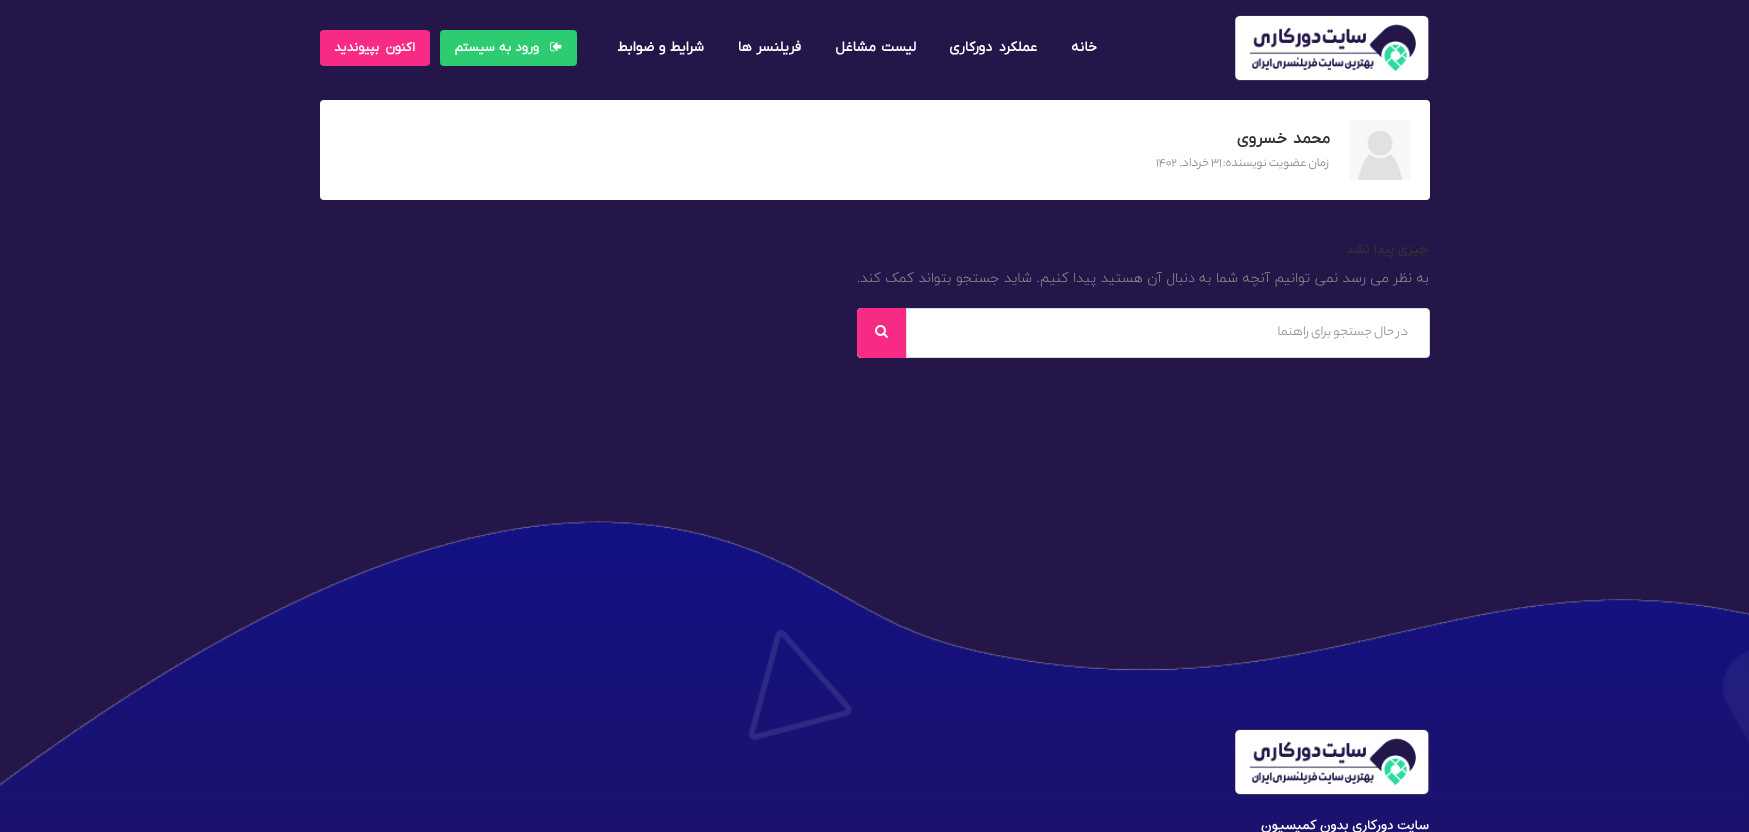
async function draw(canvas) {
  canvas.width = 1749;
  canvas.height = 832;
  const ctx = canvas.getContext('2d');
  ctx.miterLimit = 4;
  ctx.fontKerning = 'normal';
  function label(s, x, y, font, color) {
    ctx.font = font;
    ctx.fillStyle = color;
    ctx.fillText(s, x, y);
  }
  function rect(x, y, w, h, color) {
    ctx.fillStyle = color;
    ctx.fillRect(x, y, w, h);
  }
  function roundedRect(x, y, w, h, r, color) {
    ctx.fillStyle = color;
    ctx.beginPath();
    ctx.roundRect(x, y, w, h, r);
    ctx.fill();
  }
  async function image(src, x, y, w, h) {
    const img = new Image();
    img.src = src;
    await img.decode();
    ctx.drawImage(img, x, y, w, h);
  }

  rect(0, 0, 1749, 832, '#25164a');
  await image('assets/img1.png', 1235, 15, 194, 66);
  ctx.direction = 'rtl';
  label('خانه', 1097, 51, 'bold 14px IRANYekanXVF', '#fff');
  ctx.wordSpacing = '3px';
  label('عملکرد دورکاری', 1037, 51, 'bold 14px IRANYekanXVF', '#fff');
  ctx.wordSpacing = '2px';
  label('لیست مشاغل', 916, 51, 'bold 14px IRANYekanXVF', '#fff');
  ctx.wordSpacing = '1px';
  label('فریلنسر ها', 801, 51, 'bold 14px IRANYekanXVF', '#fff');
  label('شرایط و ضوابط', 704, 51, 'bold 14px IRANYekanXVF', '#fff');
  roundedRect(440, 30, 137, 36, 4, '#2ecc71');
  await image('assets/img2.png', 550, 42, 12, 10);
  label('ورود به سیستم', 539, 51, 'bold 13px IRANYekanXVF', '#fff');
  roundedRect(320, 30, 110, 36, 4, '#f72a85');
  ctx.wordSpacing = '3px';
  label('اکنون بپیوندید', 415, 51, 'bold 13px IRANYekanXVF', '#fff');
  roundedRect(320, 100, 1110, 100, 4, '#fff');
  await image('assets/img3.png', 1350, 120, 60, 60);
  ctx.wordSpacing = '2px';
  label('محمد خسروی', 1330, 143, 'bold 16px IRANYekanXVF', '#323232');
  ctx.wordSpacing = '0px';
  label('زمان عضویت نویسنده:', 1329, 166, '13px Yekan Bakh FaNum', '#919191');
  ctx.direction = 'ltr';
  label('31', 1211, 166, '13px Yekan Bakh FaNum', '#919191');
  ctx.direction = 'rtl';
  label('خرداد,', 1209, 166, '13px Yekan Bakh FaNum', '#919191');
  ctx.direction = 'ltr';
  label('1402', 1156, 166, '13px Yekan Bakh FaNum', '#919191');
  ctx.direction = 'rtl';
  label('چیزی پیدا نشد', 1429, 253, '500 14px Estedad', '#323232');
  label('به نظر می رسد نمی توانیم آنچه شما به دنبال آن هستید پیدا کنیم. شاید جستجو بتواند کمک کند.', 1429, 282, '300 14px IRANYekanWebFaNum', '#919191');
  ctx.fillStyle = '#fff';
  ctx.beginPath();
  ctx.roundRect(857.5, 308.5, 572, 49, 3.5);
  ctx.fill();
  ctx.strokeStyle = '#dbdbdb';
  ctx.stroke();
  label('در حال جستجو برای راهنما', 1408, 335, '14px Yekan Bakh FaNum', '#999');
  ctx.fillStyle = '#f72a85';
  ctx.beginPath();
  ctx.roundRect(857, 308, 50, 50, [5, 0, 0, 5]);
  ctx.fill();
  rect(906, 308, 1, 50, '#ddd');
  await image('assets/img4.png', 875, 325, 13, 13);
  await image('assets/img5.png', 0, 521, 1749, 311);
  await image('assets/img6.png', 1234, 729, 196, 66);
  label('سایت دورکاری بدون کمیسیون', 1429, 829, '500 14px Estedad', '#fff');
}

draw(document.querySelector('canvas'));
